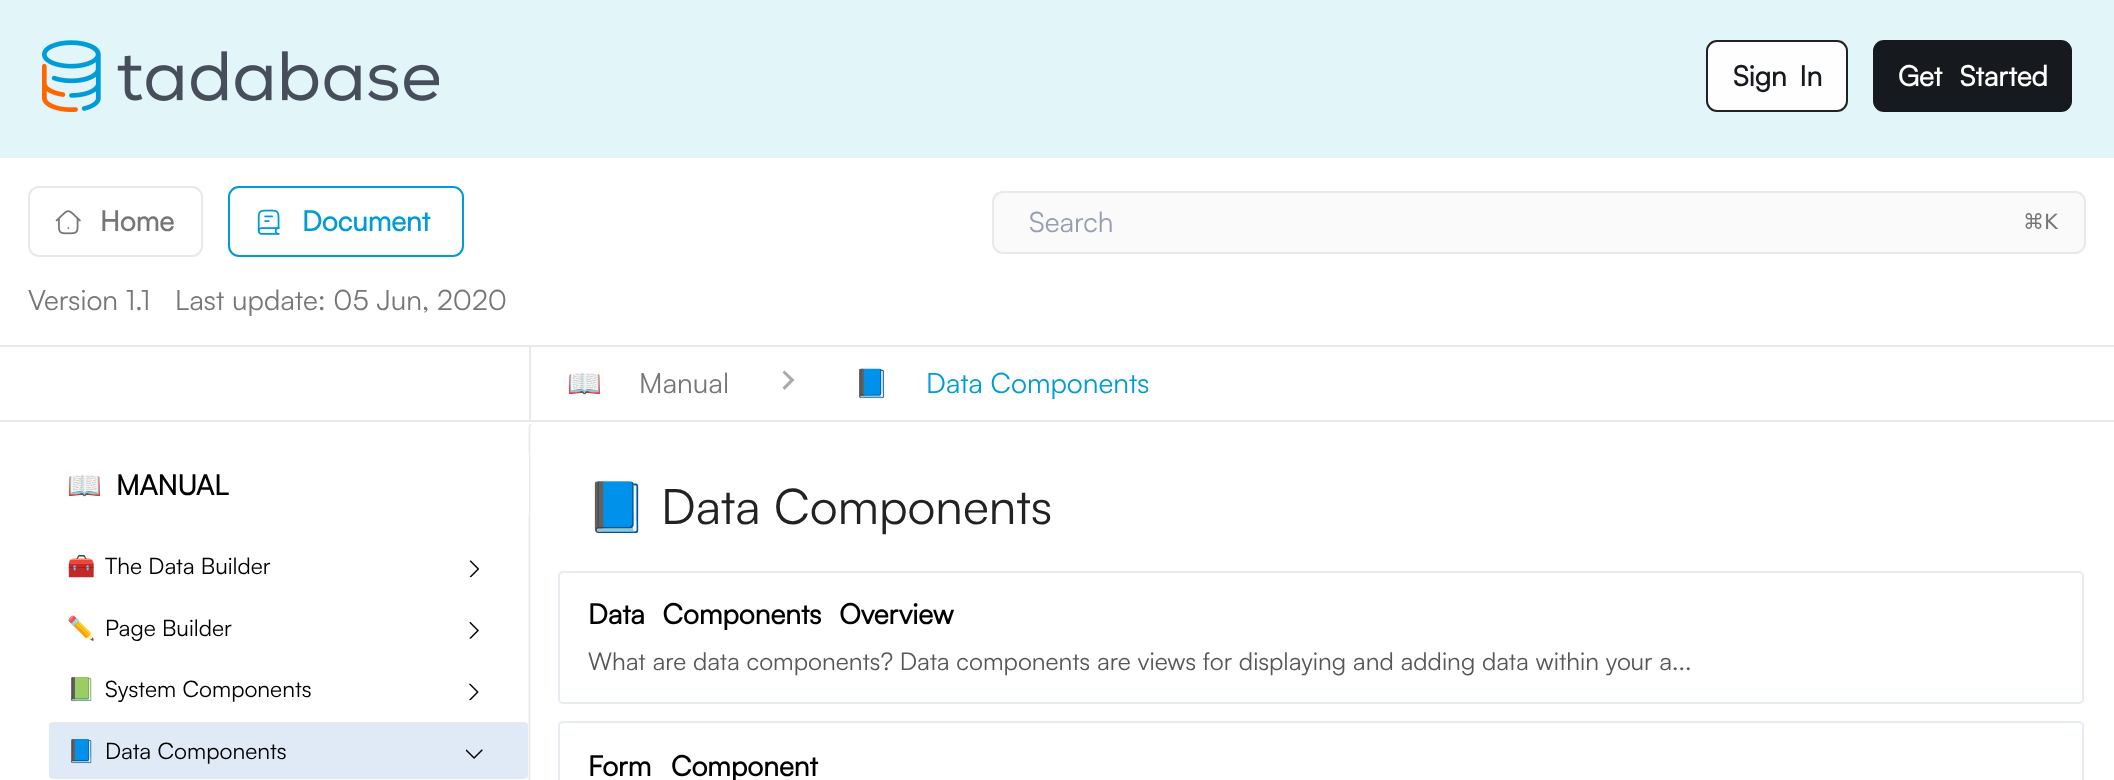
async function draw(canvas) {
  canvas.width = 2114;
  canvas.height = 780;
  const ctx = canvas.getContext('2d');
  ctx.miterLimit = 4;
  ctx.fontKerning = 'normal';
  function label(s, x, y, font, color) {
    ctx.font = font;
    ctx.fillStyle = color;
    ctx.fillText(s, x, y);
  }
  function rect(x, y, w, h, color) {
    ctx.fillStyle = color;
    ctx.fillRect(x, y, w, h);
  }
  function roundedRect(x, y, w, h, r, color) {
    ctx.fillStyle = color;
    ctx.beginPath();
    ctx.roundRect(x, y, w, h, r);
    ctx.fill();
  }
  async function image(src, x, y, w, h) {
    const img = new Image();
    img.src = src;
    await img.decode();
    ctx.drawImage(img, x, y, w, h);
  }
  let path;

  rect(0, 0, 2114, 780, '#fff');
  rect(0, 0, 2114, 158, '#e2f5f8');
  await image('assets/img1.png', 42, 40, 397, 72);
  ctx.fillStyle = '#fefefe';
  ctx.beginPath();
  ctx.roundRect(1707, 41, 140, 70, 10);
  ctx.fill();
  ctx.strokeStyle = '#222';
  ctx.lineWidth = 2;
  ctx.stroke();
  ctx.wordSpacing = '5px';
  label('Sign In', 1733, 86, 'bold 28px Satoshi', '#16191d');
  roundedRect(1873, 40, 199, 72, 11, '#16191d');
  ctx.wordSpacing = '10px';
  label('Get Started', 1898, 86, 'bold 28px Satoshi', '#fff');
  rect(0, 345, 2114, 2, '#e9e9e9');
  ctx.beginPath();
  ctx.roundRect(29, 187, 173, 69, 10);
  ctx.strokeStyle = '#e9e9e9';
  ctx.stroke();
  await image('assets/img2.png', 55, 210, 26, 25);
  ctx.wordSpacing = '0px';
  label('Home', 100, 231, 'bold 28px Satoshi', '#777');
  ctx.beginPath();
  ctx.roundRect(229, 187, 234, 69, 10);
  ctx.strokeStyle = '#009cd7';
  ctx.stroke();
  await image('assets/img3.png', 257, 209, 23, 26);
  label('Document', 302, 231, 'bold 28px Satoshi', '#009cd7');
  ctx.fillStyle = '#fafafa';
  ctx.beginPath();
  ctx.roundRect(993, 192, 1092, 61, 10);
  ctx.fill();
  ctx.strokeStyle = '#e9e9e9';
  ctx.stroke();
  label('Search', 1029, 232, '28px Satoshi', '#969faf');
  label('⌘K', 2023, 229, '21px DejaVu Sans', '#777');
  label('Version 1.1', 28, 310, '28px Satoshi', '#777');
  label('Last update: 05 Jun, 2020', 175, 310, '28px Satoshi', '#777');
  rect(0, 420, 2114, 2, '#e9e9e9');
  rect(529, 347, 2, 73, '#e9e9e9');
  label('📖', 567, 393, '28px Noto Color Emoji', '#777');
  label('Manual', 639, 393, '28px Satoshi', '#777');
  ctx.fillStyle = '#aaa';
  path = new Path2D('M784.5 370.5L782.5 372.5L790 380L782.5 387.5L784.5 390L794.5 380Z');
  ctx.fill(path);
  label('📘', 854, 393, '28px Noto Color Emoji', '#009cd7');
  label('Data Components', 926, 393, '28px Satoshi', '#009cd7');
  path = new Path2D('M530.5 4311.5L529.5 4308.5V427L530.5 424');
  ctx.lineWidth = 1.8;
  ctx.stroke(path);
  ctx.fillStyle = '#fff';
  ctx.beginPath();
  ctx.roundRect(49, 450, 480, 68, [0, 5, 5, 0]);
  ctx.fill();
  label('📖', 67, 495, 'bold 28px Noto Color Emoji', '#000');
  label('MANUAL', 116, 495, 'bold 28px Satoshi', '#000');
  label('🧰', 67, 574, '22.75px Noto Color Emoji', '#000');
  label('The Data Builder', 105, 574, '22.75px Satoshi', '#000');
  await image('assets/img4.png', 469, 560, 10, 18);
  label('✏️', 67, 636, '22.75px Noto Color Emoji', '#000');
  label('Page Builder', 105, 636, '22.75px Satoshi', '#000');
  await image('assets/img5.png', 469, 622, 10, 17);
  label('📗', 67, 697, '22.75px Noto Color Emoji', '#000');
  label('System Components', 105, 697, '22.75px Satoshi', '#000');
  await image('assets/img6.png', 469, 683, 10, 18);
  ctx.fillStyle = '#e0eaf6';
  path = new Path2D('M54 722H523C526 722 528 723 528 725V776C528 778 526 779 523 779H54C51 779 49 778 49 776V725C49 723 51 722 54 722Z');
  ctx.fill(path);
  label('📘', 67, 759, '22.75px Noto Color Emoji', '#000');
  label('Data Components', 105, 759, '22.75px Satoshi', '#000');
  await image('assets/img7.png', 466, 749, 17, 10);
  label('📘', 586, 524, '49px Noto Color Emoji', '#222');
  label('Data Components', 661, 524, '49px Satoshi', '#222');
  ctx.beginPath();
  ctx.roundRect(559, 572, 1524, 131, 4);
  ctx.strokeStyle = '#e6ecf1';
  ctx.lineWidth = 2;
  ctx.stroke();
  ctx.wordSpacing = '10px';
  label('Data Components Overview', 588, 624, 'bold 28px Satoshi', '#000');
  ctx.wordSpacing = '0px';
  label('What are data components? Data components are views for displaying and adding data within your a...', 588, 670, '24.5px Satoshi', '#575757');
  ctx.beginPath();
  ctx.roundRect(559, 722, 1524, 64, 4);
  ctx.stroke();
  ctx.wordSpacing = '12px';
  label('Form Component', 588, 776, 'bold 28px Satoshi', '#000');
}

draw(document.querySelector('canvas'));
